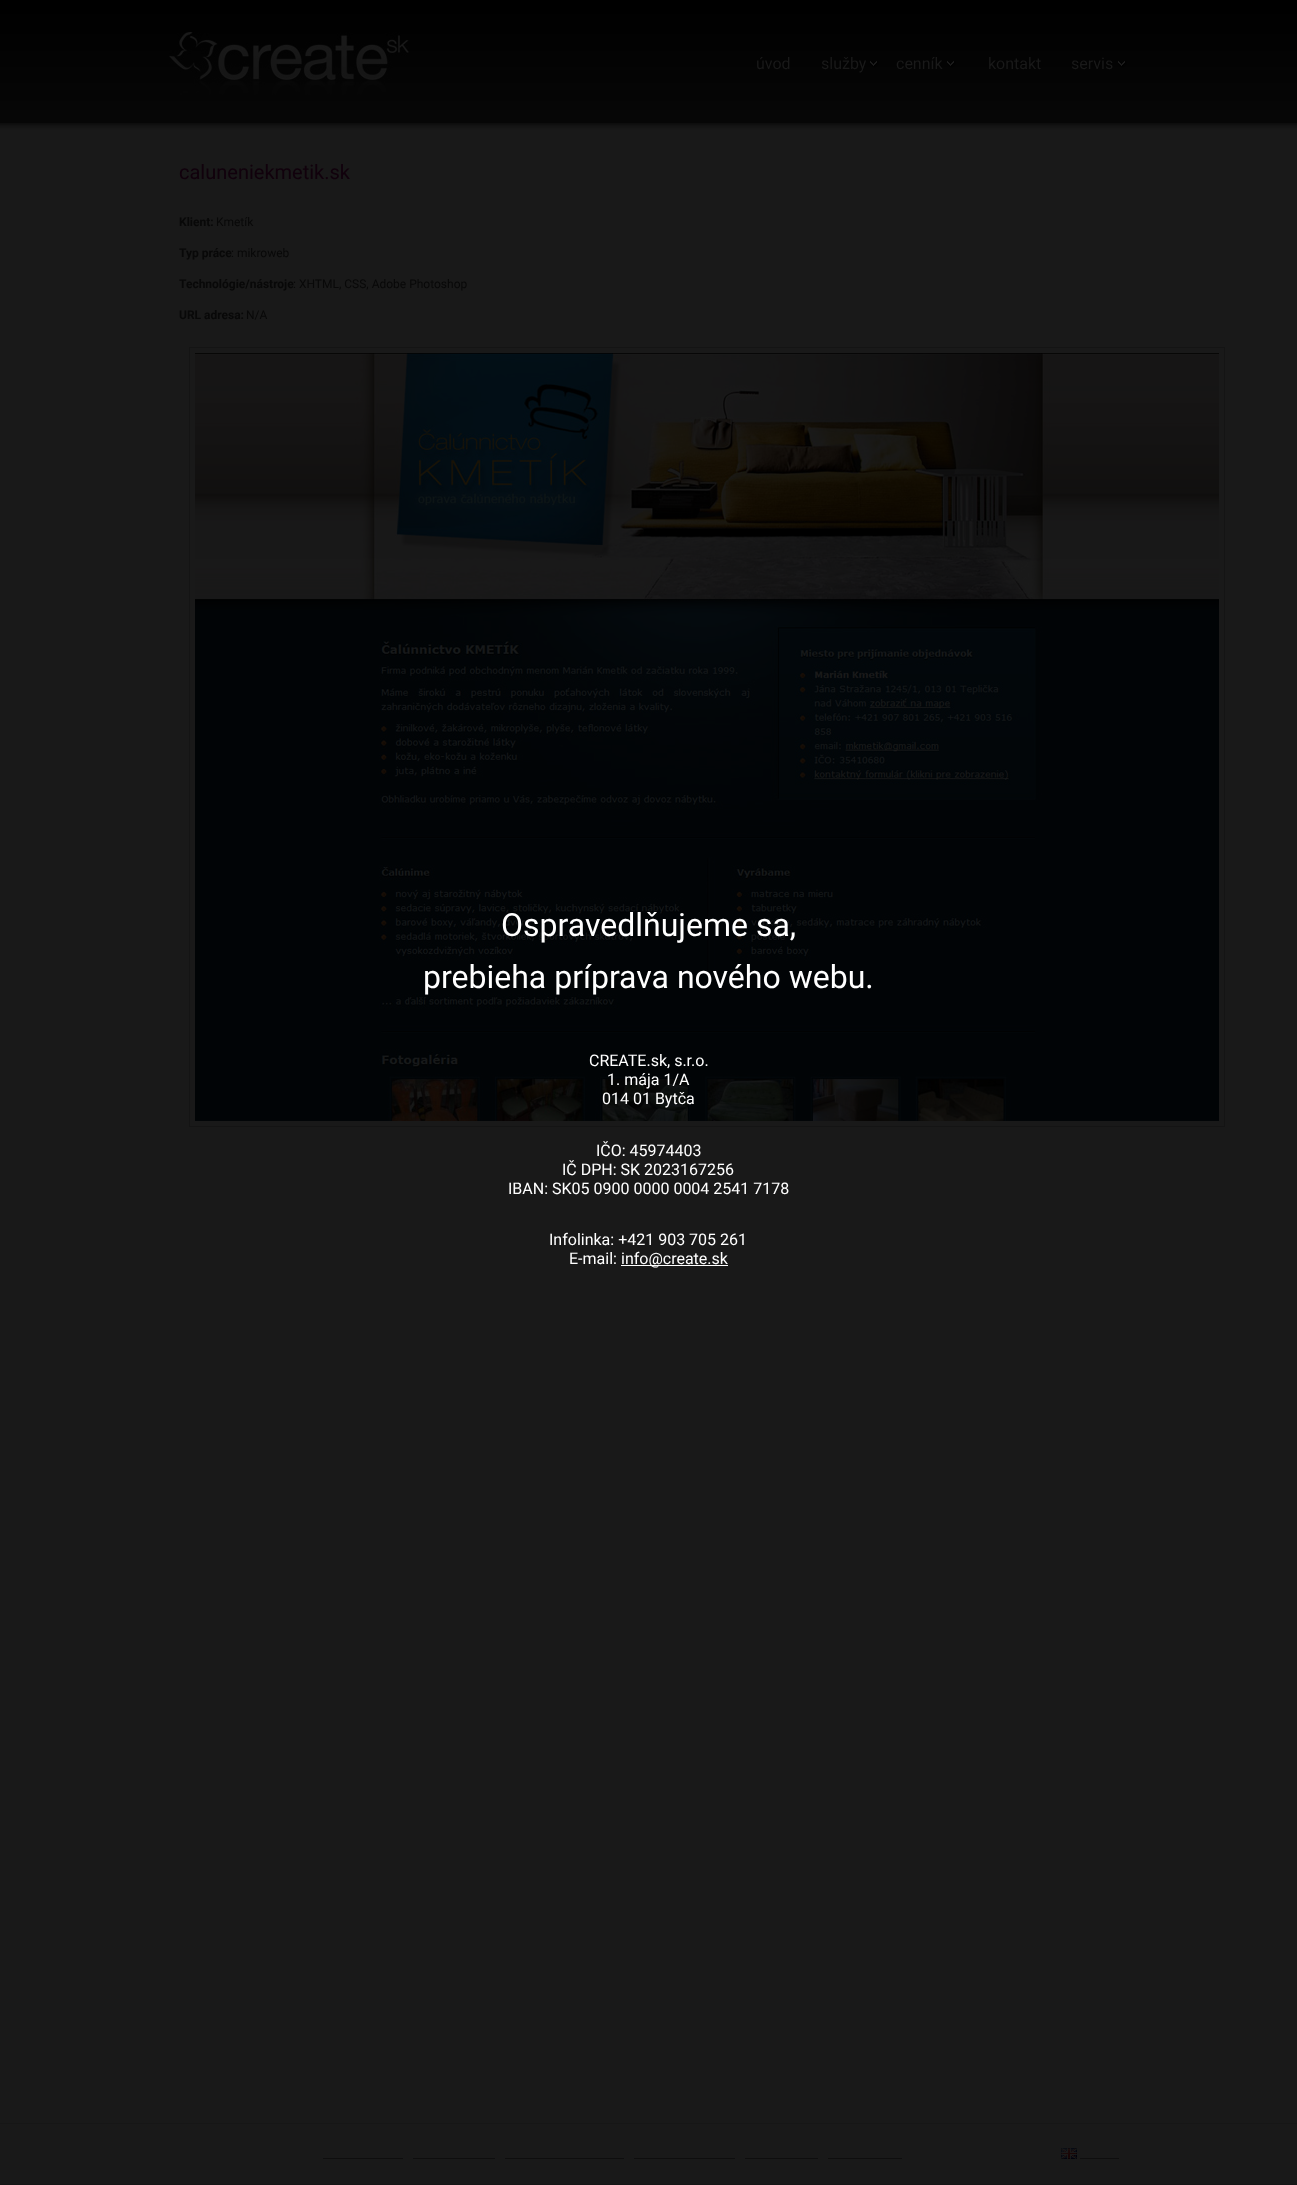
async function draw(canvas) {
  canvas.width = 1297;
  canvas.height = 2185;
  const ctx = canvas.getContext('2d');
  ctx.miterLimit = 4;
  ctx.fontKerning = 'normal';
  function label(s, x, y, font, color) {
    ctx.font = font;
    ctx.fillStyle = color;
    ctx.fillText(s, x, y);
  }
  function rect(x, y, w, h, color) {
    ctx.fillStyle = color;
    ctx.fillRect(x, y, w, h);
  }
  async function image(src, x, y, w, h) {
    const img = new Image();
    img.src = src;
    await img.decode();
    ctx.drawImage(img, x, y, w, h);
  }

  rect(0, 0, 1297, 2185, '#191919');
  await image('assets/img1.png', 0, 0, 1297, 131);
  await image('assets/img2.png', 169, 32, 240, 63);
  label('úvod', 756, 69, '16px Roboto', '#191919');
  label('služby', 821, 69, '16px Roboto', '#191919');
  await image('assets/img3.png', 870, 61, 9, 7);
  label('cenník', 896, 69, '16px Roboto', '#191919');
  await image('assets/img3.png', 947, 61, 9, 7);
  label('kontakt', 988, 69, '16px Roboto', '#191919');
  label('servis', 1071, 69, '16px Roboto', '#191919');
  await image('assets/img3.png', 1118, 61, 9, 7);
  label('caluneniekmetik.sk', 179, 179, '20px Roboto', '#11010c');
  label('Klient:', 179, 226, 'bold 12px Roboto', '#080808');
  label('Kmetík', 216, 226, '12px Roboto', '#080808');
  label('Typ práce', 179, 257, 'bold 12px Roboto', '#080808');
  label(': mikroweb', 231, 257, '12px Roboto', '#080808');
  label('Technológie/nástroje', 179, 288, 'bold 12px Roboto', '#080808');
  label(': XHTML, CSS, Adobe Photoshop', 293, 288, '12px Roboto', '#080808');
  label('URL adresa:', 179, 319, 'bold 12px Roboto', '#080808');
  label('N/A', 246, 319, '12px Roboto', '#080808');
  ctx.strokeStyle = '#141414';
  ctx.strokeRect(189.5, 347.5, 1035, 779);
  await image('assets/img4.png', 195, 353, 1024, 768);
  label('Ospravedlňujeme sa,', 501, 936, '32px Roboto', '#fff');
  label('prebieha príprava nového webu.', 423, 988, '32px Roboto', '#fff');
  label('CREATE.sk, s.r.o.', 589, 1066, '16px Roboto', '#fff');
  label('1. mája 1/A', 607, 1085, '16px Roboto', '#fff');
  label('014 01 Bytča', 602, 1104, '16px Roboto', '#fff');
  label('IČO: 45974403', 596, 1156, '16px Roboto', '#fff');
  label('IČ DPH: SK 2023167256', 562, 1175, '16px Roboto', '#fff');
  label('IBAN: SK05 0900 0000 0004 2541 7178', 508, 1194, '16px Roboto', '#fff');
  label('Infolinka: +421 903 705 261', 549, 1245, '16px Roboto', '#fff');
  label('E-mail:', 569, 1264, '16px Roboto', '#fff');
  rect(621, 1265, 107, 1, '#fff');
  label('info@create.sk', 621, 1264, '16px Roboto', '#fff');
  rect(0, 2123, 1297, 1, '#161616');
  rect(0, 2184, 1297, 1, '#161616');
  rect(323, 2158, 80, 1, '#0e0e0e');
  rect(413, 2158, 82, 1, '#0e0e0e');
  rect(505, 2158, 119, 1, '#0e0e0e');
  rect(634, 2158, 101, 1, '#0e0e0e');
  rect(745, 2158, 73, 1, '#0e0e0e');
  rect(828, 2158, 74, 1, '#0e0e0e');
  await image('assets/img5.png', 1061, 2148, 16, 11);
  rect(1080, 2158, 39, 1, '#0e0e0e');
}

draw(document.querySelector('canvas'));
